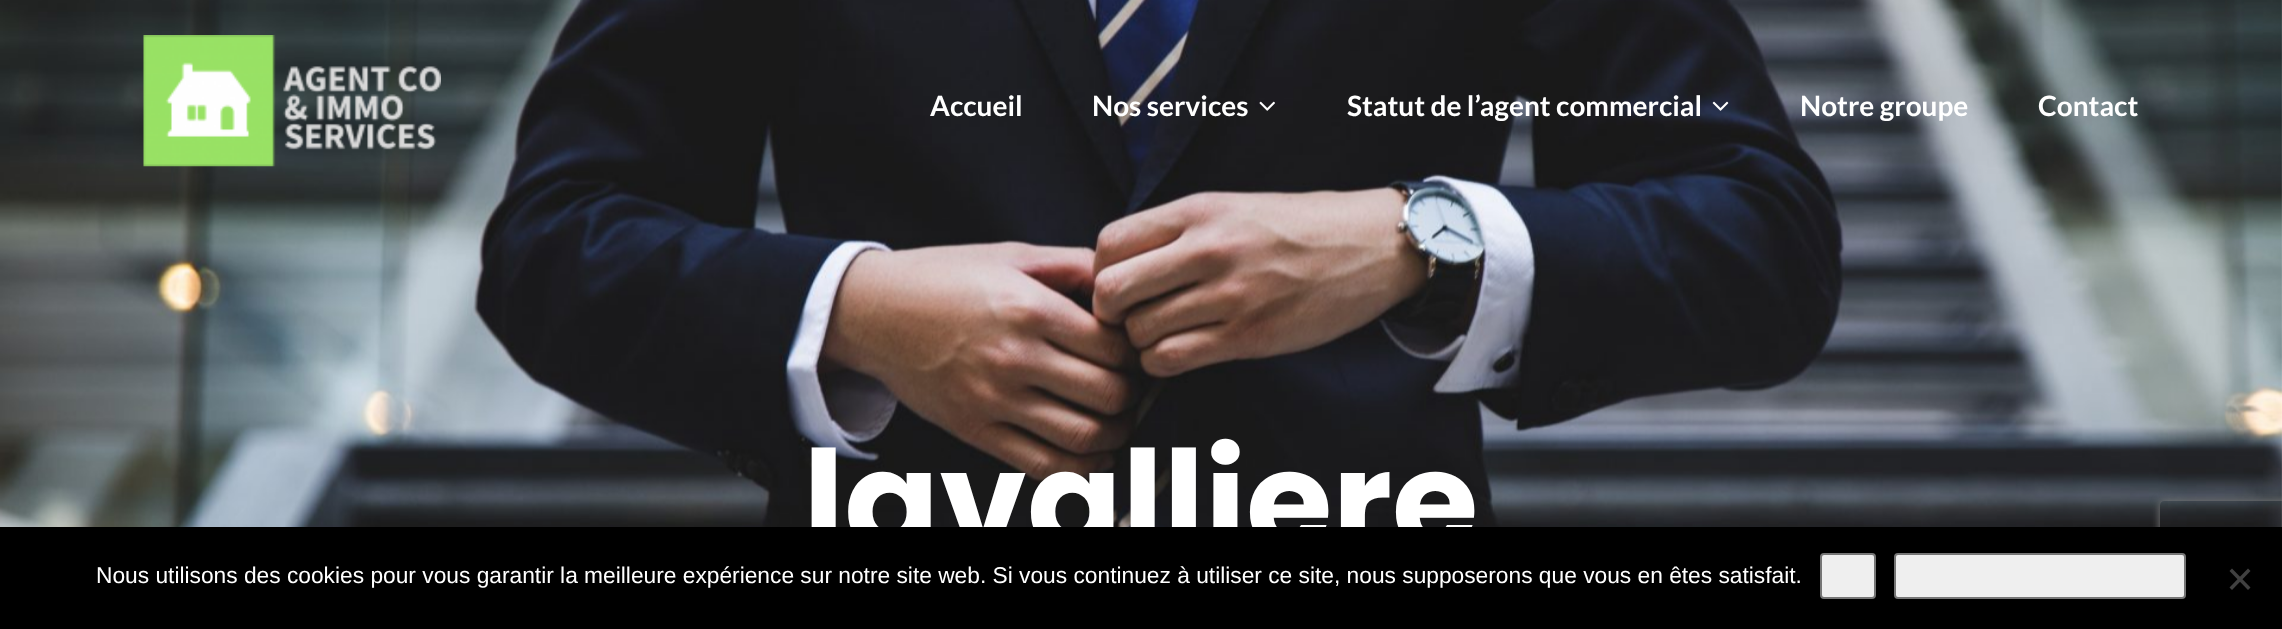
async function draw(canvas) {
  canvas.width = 2282;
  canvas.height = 629;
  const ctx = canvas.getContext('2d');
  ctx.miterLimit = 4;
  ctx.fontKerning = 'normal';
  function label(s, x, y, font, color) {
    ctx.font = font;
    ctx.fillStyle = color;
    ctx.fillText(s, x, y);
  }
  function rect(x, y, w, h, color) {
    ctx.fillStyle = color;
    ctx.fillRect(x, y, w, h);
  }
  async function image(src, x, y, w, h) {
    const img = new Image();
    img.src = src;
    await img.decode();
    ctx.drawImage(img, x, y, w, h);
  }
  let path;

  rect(0, 0, 2282, 629, '#fff');
  await image('assets/img1.png', 0, 0, 2282, 527);
  await image('assets/img2.png', 143, 35, 298, 132);
  label('Accueil', 930, 116, 'bold 28px Lato', '#fff');
  label('Nos services', 1092, 116, 'bold 28px Lato', '#fff');
  await image('assets/img3.png', 1259, 101, 16, 10);
  label('Statut de l’agent commercial', 1347, 116, 'bold 28px Lato', '#fff');
  await image('assets/img4.png', 1712, 101, 17, 10);
  label('Notre groupe', 1800, 116, 'bold 28px Lato', '#fff');
  label('Contact', 2038, 116, 'bold 28px Lato', '#fff');
  label('lavalliere', 803, 551, 'bold 140px Poppins', '#fff');
  ctx.save();
  path = new Path2D('M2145 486H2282V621H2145ZM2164 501H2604C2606 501 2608 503 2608 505V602C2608 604 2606 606 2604 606H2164C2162 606 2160 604 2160 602V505C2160 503 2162 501 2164 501Z');
  ctx.clip(path, 'evenodd');
  ctx.fillStyle = '#808080';
  ctx.filter = 'blur(4.5px)';
  ctx.beginPath();
  ctx.roundRect(2160, 501, 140, 105, 4);
  ctx.fill();
  ctx.filter = 'none';
  ctx.restore();
  rect(0, 527, 2282, 102, '#000');
  label('Nous utilisons des cookies pour vous garantir la meilleure expérience sur notre site web. Si vous continuez à utiliser ce site, nous supposerons que vous en êtes satisfait.', 96, 583, '22.75px Liberation Sans', '#fff');
  ctx.fillStyle = '#efefef';
  ctx.beginPath();
  ctx.roundRect(1821, 554, 54, 44, 3);
  ctx.fill();
  ctx.strokeStyle = '#767676';
  ctx.lineWidth = 2;
  ctx.stroke();
  ctx.beginPath();
  ctx.roundRect(1895, 554, 290, 44, 3);
  ctx.fill();
  ctx.stroke();
  ctx.fillStyle = '#404040';
  path = new Path2D('M2248 568.5L2250.5 571L2232 590L2229.5 587.5Z');
  ctx.fill(path);
  path = new Path2D('M2229.5 571L2232 568.5L2250.5 587.5L2248 590Z');
  ctx.fill(path);
}

draw(document.querySelector('canvas'));
